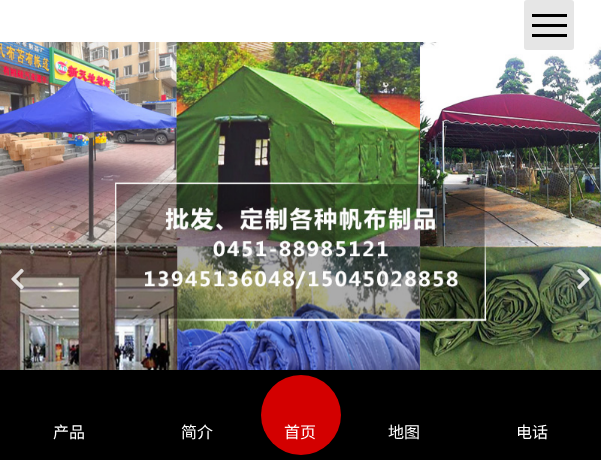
async function draw(canvas) {
  canvas.width = 601;
  canvas.height = 460;
  const ctx = canvas.getContext('2d');
  ctx.miterLimit = 4;
  ctx.fontKerning = 'normal';
  function label(s, x, y, font, color) {
    ctx.font = font;
    ctx.fillStyle = color;
    ctx.fillText(s, x, y);
  }
  function rect(x, y, w, h, color) {
    ctx.fillStyle = color;
    ctx.fillRect(x, y, w, h);
  }
  function roundedRect(x, y, w, h, r, color) {
    ctx.fillStyle = color;
    ctx.beginPath();
    ctx.roundRect(x, y, w, h, r);
    ctx.fill();
  }
  async function image(src, x, y, w, h) {
    const img = new Image();
    img.src = src;
    await img.decode();
    ctx.drawImage(img, x, y, w, h);
  }

  rect(0, 0, 601, 460, '#fff');
  await image('assets/img1.png', 0, 42, 601, 328);
  roundedRect(524, 0, 50, 50, 3, '#e6e6e6');
  rect(532, 14, 35, 3, '#000');
  rect(532, 24, 35, 3, '#000');
  rect(532, 34, 35, 3, '#000');
  await image('assets/img2.png', 11, 268, 13, 22);
  await image('assets/img3.png', 577, 268, 13, 22);
  rect(0, 370, 601, 90, '#000');
  label('产品', 53, 438, '16px Noto Sans CJK SC', '#fff');
  label('简介', 181, 438, '16px Noto Sans CJK SC', '#fff');
  ctx.fillStyle = '#d30000';
  ctx.beginPath();
  ctx.arc(301, 415, 40, 0, 2 * Math.PI);
  ctx.fill();
  label('首页', 284, 438, '16px Noto Sans CJK SC', '#fff');
  label('地图', 388, 438, '16px Noto Sans CJK SC', '#fff');
  label('电话', 516, 438, '16px Noto Sans CJK SC', '#fff');
}

draw(document.querySelector('canvas'));
